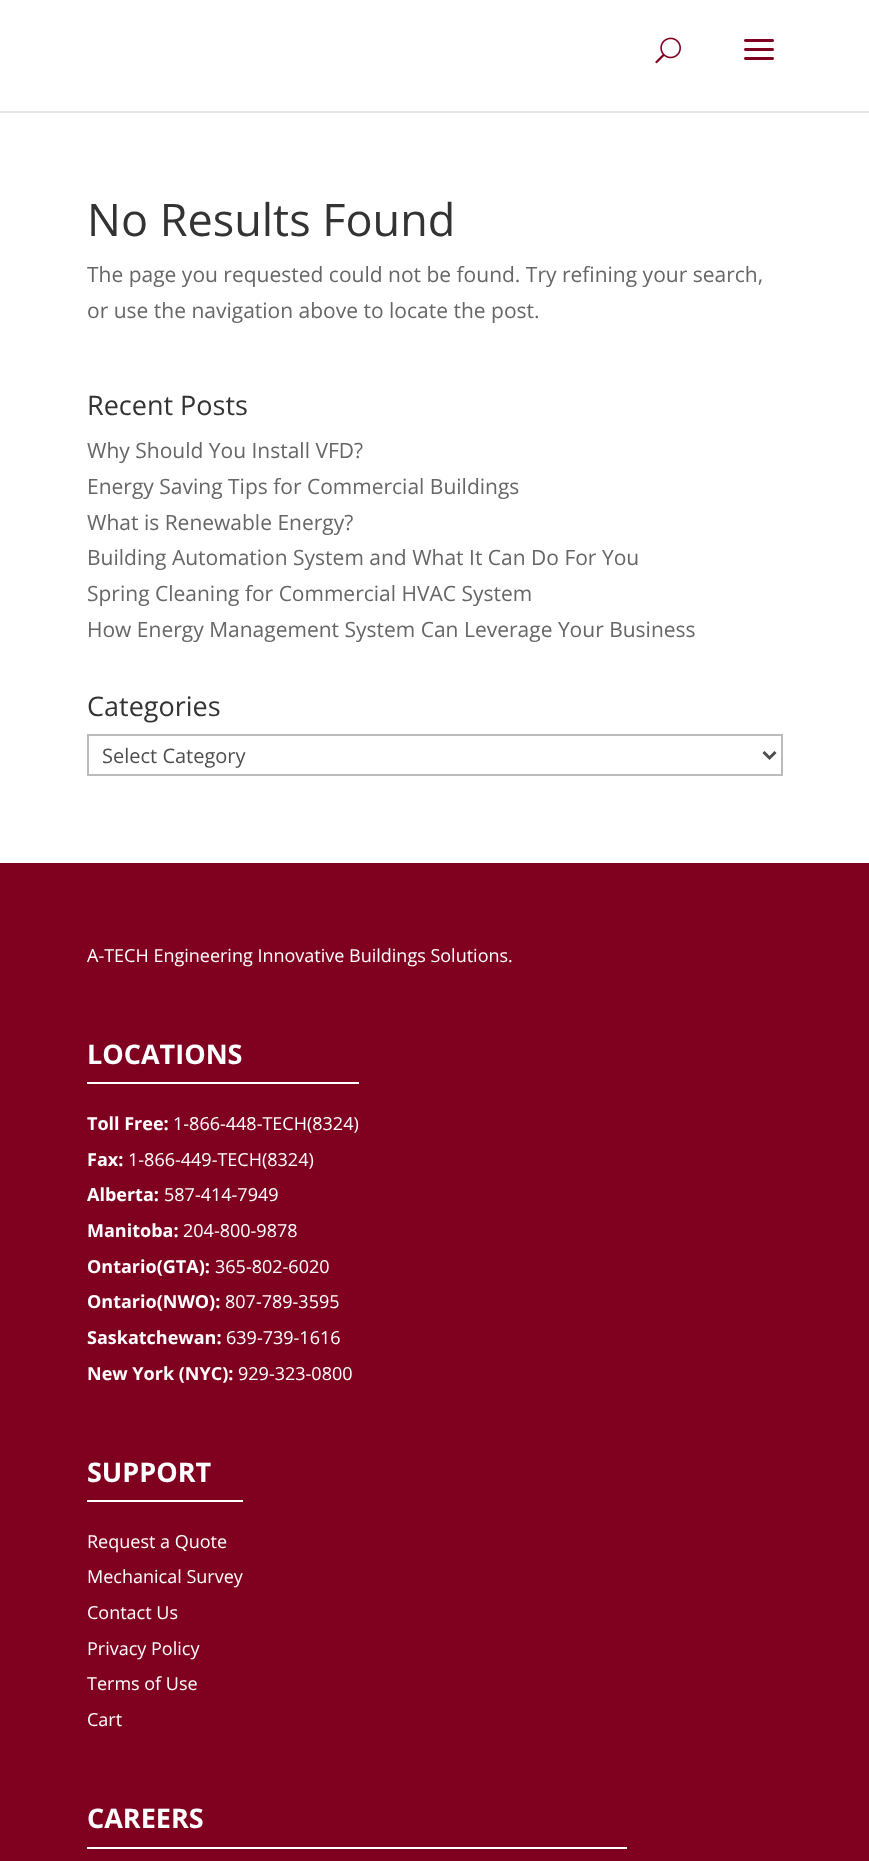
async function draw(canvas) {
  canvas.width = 869;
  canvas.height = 1861;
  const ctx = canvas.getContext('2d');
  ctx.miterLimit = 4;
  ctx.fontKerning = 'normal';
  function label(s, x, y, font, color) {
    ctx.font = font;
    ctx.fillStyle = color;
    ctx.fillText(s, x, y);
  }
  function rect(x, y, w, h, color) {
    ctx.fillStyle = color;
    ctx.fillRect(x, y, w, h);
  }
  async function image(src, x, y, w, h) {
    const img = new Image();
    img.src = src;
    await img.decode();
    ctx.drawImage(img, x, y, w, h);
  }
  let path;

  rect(0, 0, 869, 1861, '#800020');
  rect(0, 111, 869, 2, '#e6e6e6');
  rect(0, 0, 869, 111, '#fff');
  await image('assets/img1.png', 655, 37, 26, 27);
  await image('assets/img2.png', 744, 39, 30, 21);
  rect(0, 113, 869, 750, '#fff');
  label('No Results Found', 87, 236, '45px Open Sans', '#333');
  label('The page you requested could not be found. Try refining your search,', 87, 282, '21px Open Sans', '#666');
  label('or use the navigation above to locate the post.', 87, 318, '21px Open Sans', '#666');
  label('Recent Posts', 87, 415, '27px Open Sans', '#333');
  label('Why Should You Install VFD?', 87, 458, '21px Open Sans', '#666');
  label('Energy Saving Tips for Commercial Buildings', 87, 494, '21px Open Sans', '#666');
  label('What is Renewable Energy?', 87, 530, '21px Open Sans', '#666');
  label('Building Automation System and What It Can Do For You', 87, 565, '21px Open Sans', '#666');
  label('Spring Cleaning for Commercial HVAC System', 87, 601, '21px Open Sans', '#666');
  label('How Energy Management System Can Leverage Your Business', 87, 637, '21px Open Sans', '#666');
  label('Categories', 87, 716, '27px Open Sans', '#333');
  ctx.strokeStyle = '#bbb';
  ctx.lineWidth = 2;
  ctx.strokeRect(88, 735, 694, 40);
  path = new Path2D('M763.5 752L769.5 758L775.5 752');
  ctx.strokeStyle = '#4e4e4e';
  ctx.lineWidth = 3;
  ctx.stroke(path);
  label('Select Category', 102, 763, '20px Open Sans', '#4e4e4e');
  label('A-TECH Engineering Innovative Buildings Solutions.', 87, 962, '18px Open Sans', '#fff');
  rect(87, 1082, 272, 2, '#fff');
  label('LOCATIONS', 87, 1064, 'bold 27px Open Sans', '#fff');
  label('Toll Free:', 87, 1130, 'bold 18px Open Sans', '#fff');
  label('1-866-448-TECH(8324)', 173, 1130, '18px Open Sans', '#fff');
  label('Fax:', 87, 1166, 'bold 18px Open Sans', '#fff');
  label('1-866-449-TECH(8324)', 128, 1166, '18px Open Sans', '#fff');
  label('Alberta:', 87, 1201, 'bold 18px Open Sans', '#fff');
  label('587-414-7949', 164, 1201, '18px Open Sans', '#fff');
  label('Manitoba:', 87, 1237, 'bold 18px Open Sans', '#fff');
  label('204-800-9878', 183, 1237, '18px Open Sans', '#fff');
  label('Ontario(GTA):', 87, 1273, 'bold 18px Open Sans', '#fff');
  label('365-802-6020', 215, 1273, '18px Open Sans', '#fff');
  label('Ontario(NWO):', 87, 1308, 'bold 18px Open Sans', '#fff');
  label('807-789-3595', 225, 1308, '18px Open Sans', '#fff');
  label('Saskatchewan:', 87, 1344, 'bold 18px Open Sans', '#fff');
  label('639-739-1616', 226, 1344, '18px Open Sans', '#fff');
  label('New York (NYC):', 87, 1380, 'bold 18px Open Sans', '#fff');
  label('929-323-0800', 238, 1380, '18px Open Sans', '#fff');
  rect(87, 1500, 156, 2, '#fff');
  label('SUPPORT', 87, 1482, 'bold 27px Open Sans', '#fff');
  label('Request a Quote', 87, 1548, '18px Open Sans', '#fff');
  label('Mechanical Survey', 87, 1583, '18px Open Sans', '#fff');
  label('Contact Us', 87, 1619, '18px Open Sans', '#fff');
  label('Privacy Policy', 87, 1655, '18px Open Sans', '#fff');
  label('Terms of Use', 87, 1690, '18px Open Sans', '#fff');
  label('Cart', 87, 1726, '18px Open Sans', '#fff');
  rect(87, 1847, 540, 2, '#fff');
  label('CAREERS', 87, 1828, 'bold 27px Open Sans', '#fff');
}

draw(document.querySelector('canvas'));
